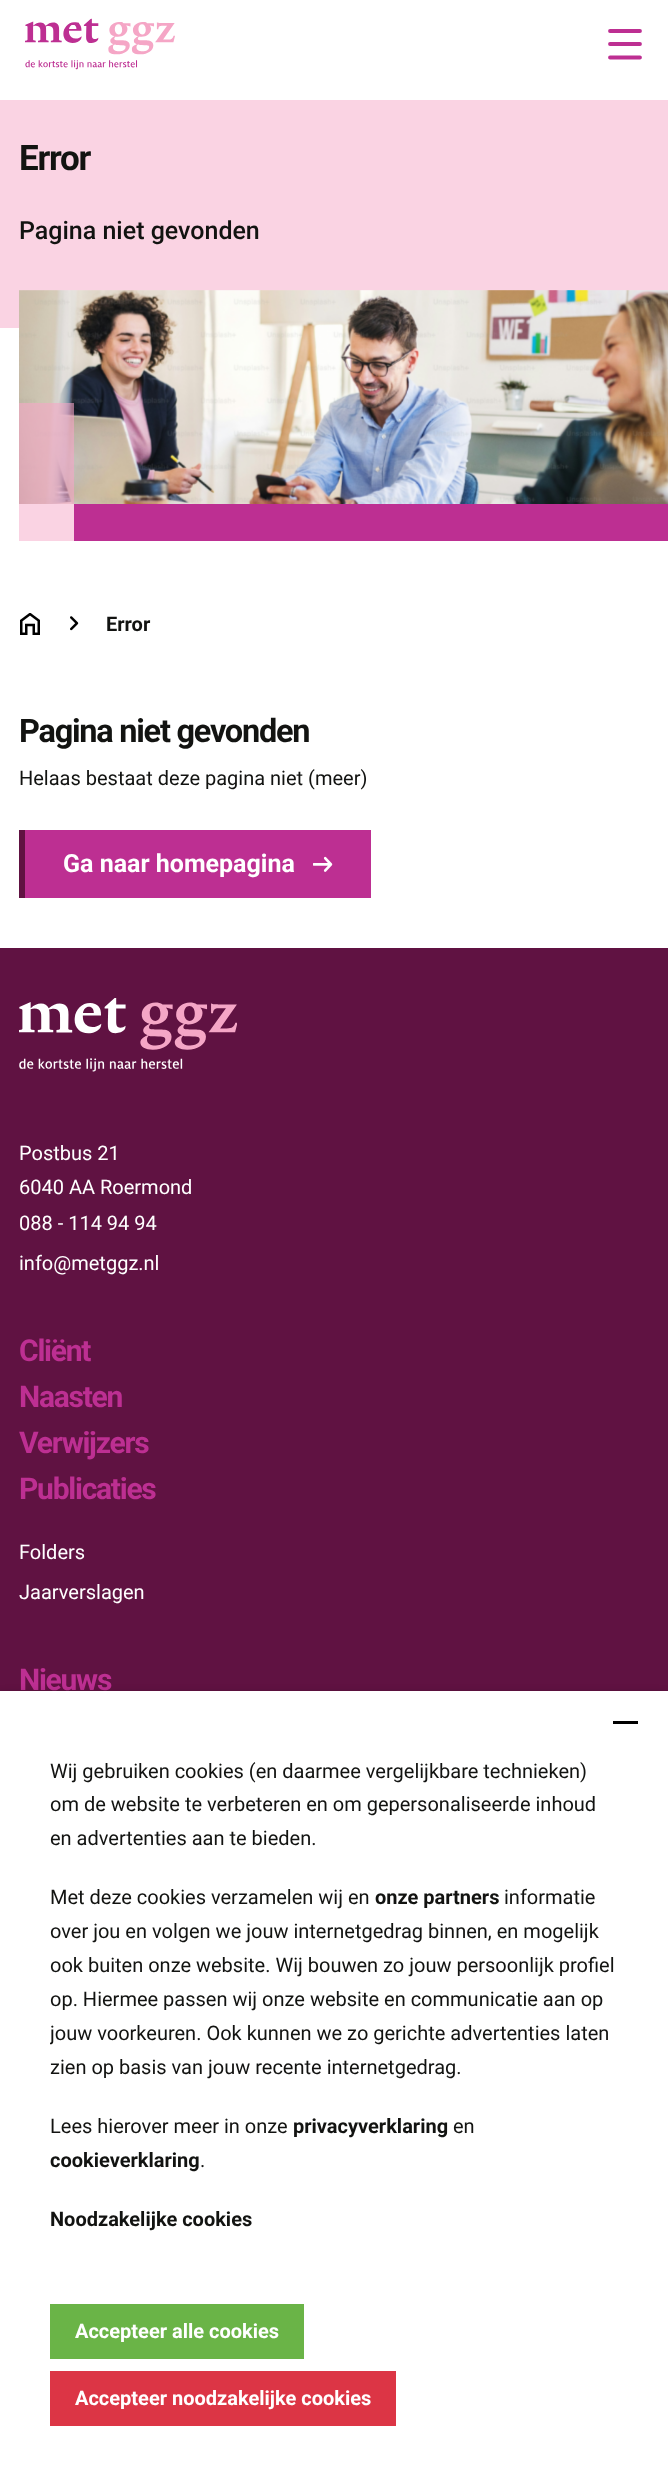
async function draw(canvas) {
  canvas.width = 668;
  canvas.height = 2476;
  const ctx = canvas.getContext('2d');
  ctx.miterLimit = 4;
  ctx.fontKerning = 'normal';
  function label(s, x, y, font, color) {
    ctx.font = font;
    ctx.fillStyle = color;
    ctx.fillText(s, x, y);
  }
  function rect(x, y, w, h, color) {
    ctx.fillStyle = color;
    ctx.fillRect(x, y, w, h);
  }
  async function image(src, x, y, w, h) {
    const img = new Image();
    img.src = src;
    await img.decode();
    ctx.drawImage(img, x, y, w, h);
  }
  let path;

  rect(0, 0, 668, 2476, '#fff');
  await image('assets/img1.png', 25, 18, 150, 52);
  path = new Path2D('M610 31H640M610 44H640M610 57.5H640');
  ctx.strokeStyle = '#bd2f92';
  ctx.lineWidth = 3.8;
  ctx.lineCap = 'round';
  ctx.stroke(path);
  rect(0, 100, 668, 228, '#fad3e3');
  ctx.letterSpacing = '-1.25px';
  label('Error', 19, 170, 'bold 35px Roboto', '#121311');
  ctx.letterSpacing = '0px';
  label('Pagina niet gevonden', 19, 239, '500 25px Roboto', '#121311');
  await image('assets/img2.png', 19, 290, 649, 214);
  rect(19, 403, 55, 101, '#f5a6c699');
  rect(19, 504, 55, 37, '#fad3e3');
  rect(74, 504, 594, 37, '#bd2f92');
  await image('assets/img3.png', 20, 613, 20, 22);
  await image('assets/img4.png', 70, 616, 9, 15);
  label('Error', 106, 631, 'bold 20px Roboto', '#121311');
  ctx.letterSpacing = '-1.25px';
  label('Pagina niet gevonden', 19, 742, 'bold 32.5px Roboto', '#121311');
  ctx.letterSpacing = '0px';
  label('Helaas bestaat deze pagina niet (meer)', 19, 785, '20px Roboto', '#121311');
  rect(25, 830, 346, 68, '#bd2f92');
  rect(19, 830, 6, 68, '#601242');
  label('Ga naar homepagina', 63, 872, 'bold 25px Roboto', '#fff');
  await image('assets/img5.png', 313, 856, 20, 16);
  rect(0, 948, 668, 743, '#601242');
  await image('assets/img6.png', 19, 998, 218, 74);
  label('Postbus 21', 19, 1160, '20px Roboto', '#fff');
  label('6040 AA Roermond', 19, 1194, '20px Roboto', '#fff');
  label('088 - 114 94 94', 19, 1230, '20px Roboto', '#fff');
  label('info@metggz.nl', 19, 1270, '20px Roboto', '#fff');
  ctx.letterSpacing = '-1.25px';
  label('Cliënt', 19, 1361, 'bold 30px Roboto', '#bd2f92');
  label('Naasten', 19, 1407, 'bold 30px Roboto', '#bd2f92');
  label('Verwijzers', 19, 1453, 'bold 30px Roboto', '#bd2f92');
  label('Publicaties', 19, 1499, 'bold 30px Roboto', '#bd2f92');
  ctx.letterSpacing = '0px';
  label('Folders', 19, 1559, '20px Roboto', '#fff');
  label('Jaarverslagen', 19, 1599, '20px Roboto', '#fff');
  ctx.letterSpacing = '-1.25px';
  label('Nieuws', 19, 1690, 'bold 30px Roboto', '#bd2f92');
  ctx.fillStyle = '#0000004d';
  ctx.filter = 'blur(4px)';
  ctx.beginPath();
  ctx.rect(-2, 1694, 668, 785);
  ctx.fill();
  ctx.filter = 'none';
  rect(0, 1691, 668, 785, '#fff');
  rect(613, 1721, 25, 3, '#000');
  ctx.letterSpacing = '0px';
  label('Wij gebruiken cookies (en daarmee vergelijkbare technieken)', 50, 1778, '20px Roboto', '#121311');
  label('om de website te verbeteren en om gepersonaliseerde inhoud', 50, 1811, '20px Roboto', '#121311');
  label('en advertenties aan te bieden.', 50, 1845, '20px Roboto', '#121311');
  label('Met deze cookies verzamelen wij en', 50, 1904, '20px Roboto', '#121311');
  label('onze partners', 375, 1904, 'bold 20px Roboto', '#121311');
  label('informatie', 504, 1904, '20px Roboto', '#121311');
  label('over jou en volgen we jouw internetgedrag binnen, en mogelijk', 50, 1938, '20px Roboto', '#121311');
  label('ook buiten onze website. Wij bouwen zo jouw persoonlijk profiel', 50, 1972, '20px Roboto', '#121311');
  label('op. Hiermee passen wij onze website en communicatie aan op', 50, 2006, '20px Roboto', '#121311');
  ctx.save();
  ctx.beginPath();
  ctx.rect(50, 1754, 569, 500);
  ctx.clip();
  label('jouw voorkeuren. Ook kunnen we zo gerichte advertenties laten', 50, 2040, '20px Roboto', '#121311');
  ctx.restore();
  label('zien op basis van jouw recente internetgedrag.', 50, 2074, '20px Roboto', '#121311');
  label('Lees hierover meer in onze', 50, 2133, '20px Roboto', '#121311');
  label('privacyverklaring', 293, 2133, 'bold 20px Roboto', '#121311');
  label('en', 453, 2133, '20px Roboto', '#121311');
  label('cookieverklaring', 50, 2167, 'bold 20px Roboto', '#121311');
  label('.', 200, 2167, '20px Roboto', '#121311');
  label('Noodzakelijke cookies', 50, 2226, 'bold 20px Roboto', '#121311');
  rect(50, 2304, 254, 55, '#6ab447');
  label('Accepteer alle cookies', 75, 2338, 'bold 20px Roboto', '#fff');
  rect(50, 2371, 346, 55, '#dc3545');
  label('Accepteer noodzakelijke cookies', 75, 2405, 'bold 20px Roboto', '#fff');
}

draw(document.querySelector('canvas'));
